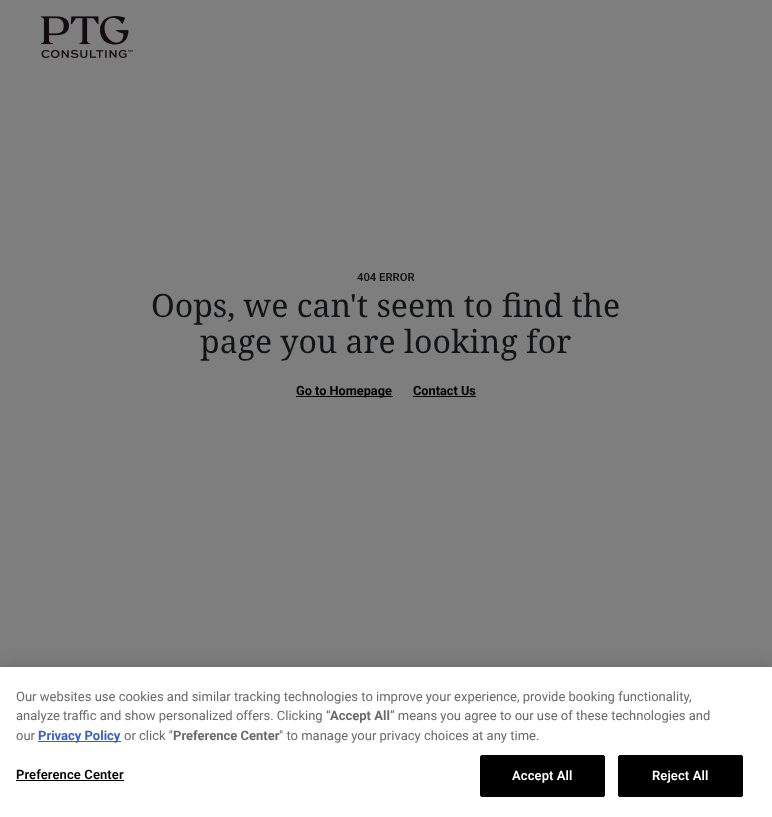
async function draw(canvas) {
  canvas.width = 772;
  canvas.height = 817;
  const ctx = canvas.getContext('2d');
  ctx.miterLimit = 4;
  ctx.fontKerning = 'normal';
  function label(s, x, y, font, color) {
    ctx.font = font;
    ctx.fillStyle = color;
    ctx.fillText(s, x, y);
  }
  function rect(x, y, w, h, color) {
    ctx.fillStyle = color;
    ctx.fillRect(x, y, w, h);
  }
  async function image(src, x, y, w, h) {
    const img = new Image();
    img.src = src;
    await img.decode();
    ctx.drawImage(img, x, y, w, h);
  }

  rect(0, 0, 772, 817, '#7e7e7e');
  await image('assets/img1.png', 41, 16, 92, 42);
  label('404 ERROR', 357, 281, '600 11.25px Roboto', '#111315');
  label('Oops, we can\'t seem to find the', 151, 317, '32px Noto Serif', '#111315');
  label('page you are looking for', 200, 353, '32px Noto Serif', '#111315');
  rect(296, 396, 97, 1, '#000');
  label('Go to Homepage', 296, 395, 'bold 12.75px Roboto', '#000');
  label('Contact Us', 413, 395, 'bold 12.75px Roboto', '#000');
  rect(413, 396, 63, 1, '#000');
  ctx.fillStyle = '#00000033';
  ctx.filter = 'blur(9px)';
  ctx.beginPath();
  ctx.rect(0, 667, 772, 150);
  ctx.fill();
  ctx.filter = 'none';
  rect(0, 667, 772, 150, '#fff');
  label('Our websites use cookies and similar tracking technologies to improve your experience, provide booking functionality,', 16, 701, '13px Roboto', '#696969');
  label('analyze traffic and show personalized offers. Clicking “', 16, 720, '13px Roboto', '#696969');
  label('Accept All', 330, 720, 'bold 13px Roboto', '#696969');
  label('” means you agree to our use of these technologies and', 390, 720, '13px Roboto', '#696969');
  label('our', 16, 740, '13px Roboto', '#696969');
  rect(38, 741, 83, 1, '#3860be');
  label('Privacy Policy', 38, 740, 'bold 13px Roboto', '#3860be');
  label('or click "', 124, 740, '13px Roboto', '#696969');
  label('Preference Center', 173, 740, 'bold 13px Roboto', '#696969');
  label('" to manage your privacy choices at any time.', 279, 740, '13px Roboto', '#696969');
  ctx.letterSpacing = '0.1px';
  label('Preference Center', 16, 779, '600 13px Roboto', '#000');
  rect(16, 780, 108, 1, '#000');
  ctx.beginPath();
  ctx.roundRect(480.5, 755.5, 124, 41, 1.5);
  ctx.fill();
  ctx.strokeStyle = '#000';
  ctx.stroke();
  label('Accept All', 512, 780, '600 13px Roboto', '#fff');
  ctx.fillStyle = '#000';
  ctx.beginPath();
  ctx.roundRect(618.5, 755.5, 124, 41, 1.5);
  ctx.fill();
  ctx.stroke();
  label('Reject All', 652, 780, '600 13px Roboto', '#fff');
}

draw(document.querySelector('canvas'));
